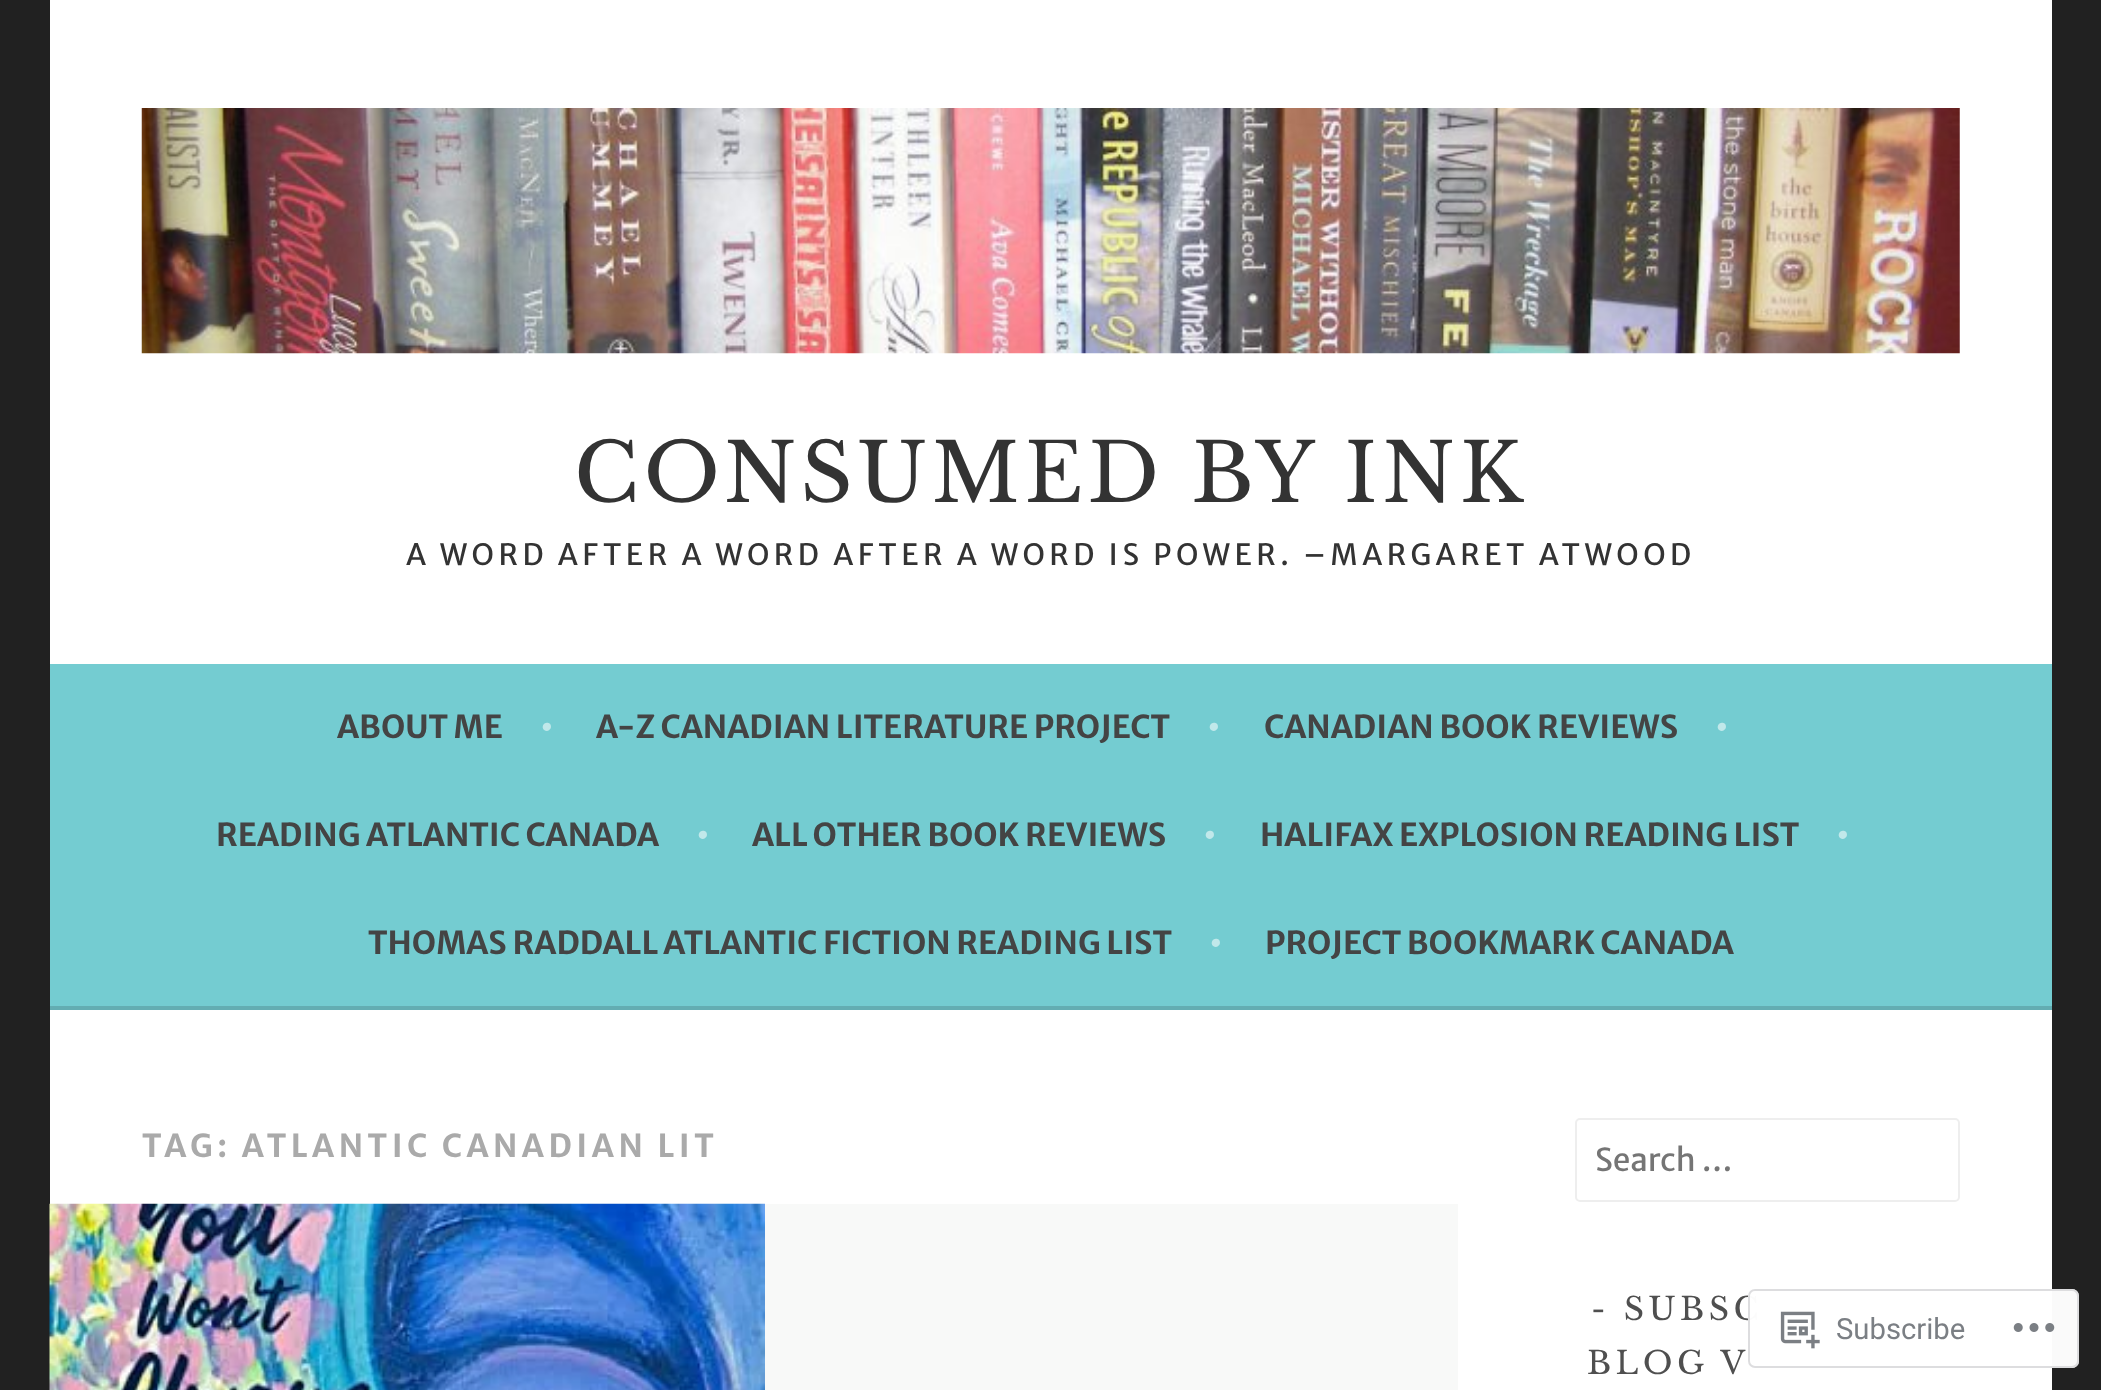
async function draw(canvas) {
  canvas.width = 2101;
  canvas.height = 1390;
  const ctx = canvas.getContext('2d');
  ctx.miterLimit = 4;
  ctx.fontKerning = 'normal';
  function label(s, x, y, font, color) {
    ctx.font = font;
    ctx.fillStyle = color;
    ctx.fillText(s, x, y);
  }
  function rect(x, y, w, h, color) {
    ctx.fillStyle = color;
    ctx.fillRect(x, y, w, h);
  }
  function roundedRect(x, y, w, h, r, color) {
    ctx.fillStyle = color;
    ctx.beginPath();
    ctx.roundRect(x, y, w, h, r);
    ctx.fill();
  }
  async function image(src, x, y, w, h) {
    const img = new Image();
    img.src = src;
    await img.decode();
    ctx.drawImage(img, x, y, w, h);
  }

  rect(0, 0, 2101, 1390, '#212121');
  rect(50, 0, 2002, 664, '#fff');
  await image('assets/img1.png', 141, 108, 1819, 246);
  ctx.letterSpacing = '4.5px';
  label('CONSUMED BY INK', 574, 502, '81px Libre Baskerville', '#333');
  label('A WORD AFTER A WORD AFTER A WORD IS POWER. –MARGARET ATWOOD', 406, 565, '29.25px Merriweather Sans', '#333');
  rect(50, 664, 2002, 342, '#74ccd1');
  rect(50, 1006, 2002, 4, '#63adb2');
  ctx.letterSpacing = '0px';
  label('ABOUT ME', 337, 738, 'bold 31.5px Merriweather Sans', '#444');
  label('•', 540, 738, 'bold 31.5px Merriweather Sans', '#c1e8ea');
  label('A-Z CANADIAN LITERATURE PROJECT', 596, 738, 'bold 31.5px Merriweather Sans', '#444');
  label('•', 1207, 738, 'bold 31.5px Merriweather Sans', '#c1e8ea');
  label('CANADIAN BOOK REVIEWS', 1264, 738, 'bold 31.5px Merriweather Sans', '#444');
  label('•', 1715, 738, 'bold 31.5px Merriweather Sans', '#c1e8ea');
  label('READING ATLANTIC CANADA', 216, 846, 'bold 31.5px Merriweather Sans', '#444');
  label('•', 696, 846, 'bold 31.5px Merriweather Sans', '#c1e8ea');
  label('ALL OTHER BOOK REVIEWS', 752, 846, 'bold 31.5px Merriweather Sans', '#444');
  label('•', 1203, 846, 'bold 31.5px Merriweather Sans', '#c1e8ea');
  label('HALIFAX EXPLOSION READING LIST', 1260, 846, 'bold 31.5px Merriweather Sans', '#444');
  label('•', 1836, 846, 'bold 31.5px Merriweather Sans', '#c1e8ea');
  label('THOMAS RADDALL ATLANTIC FICTION READING LIST', 368, 954, 'bold 31.5px Merriweather Sans', '#444');
  label('•', 1209, 954, 'bold 31.5px Merriweather Sans', '#c1e8ea');
  label('PROJECT BOOKMARK CANADA', 1265, 954, 'bold 31.5px Merriweather Sans', '#444');
  rect(50, 1010, 2002, 380, '#fff');
  ctx.letterSpacing = '4.5px';
  label('TAG: ATLANTIC CANADIAN LIT', 142, 1157, 'bold 31.5px Merriweather Sans', '#aaa');
  rect(765, 1204, 693, 186, '#f8f9f8');
  await image('assets/img2.png', 49, 1203, 716, 187);
  ctx.beginPath();
  ctx.roundRect(1576, 1119, 383, 82, 4);
  ctx.strokeStyle = '#eee';
  ctx.lineWidth = 2;
  ctx.stroke();
  ctx.letterSpacing = '0px';
  label('Search …', 1595, 1171, '31.5px Merriweather Sans', '#757575');
  ctx.letterSpacing = '4.5px';
  label('- SUBSC', 1591, 1320, '31.5px Libre Baskerville', '#4f4f4f');
  label('BLOG V', 1587, 1374, '31.5px Libre Baskerville', '#4f4f4f');
  roundedRect(1748, 1289, 331, 79, 7, '#fffffffa');
  ctx.beginPath();
  ctx.roundRect(1749, 1290, 329, 77, 6);
  ctx.strokeStyle = '#dcdcdefa';
  ctx.stroke();
  await image('assets/img3.png', 1780, 1311, 40, 38);
  ctx.letterSpacing = '0px';
  label('Subscribe', 1836, 1339, '29.25px Roboto', '#7b7f84');
  await image('assets/img4.png', 2013, 1323, 42, 9);
}

draw(document.querySelector('canvas'));
